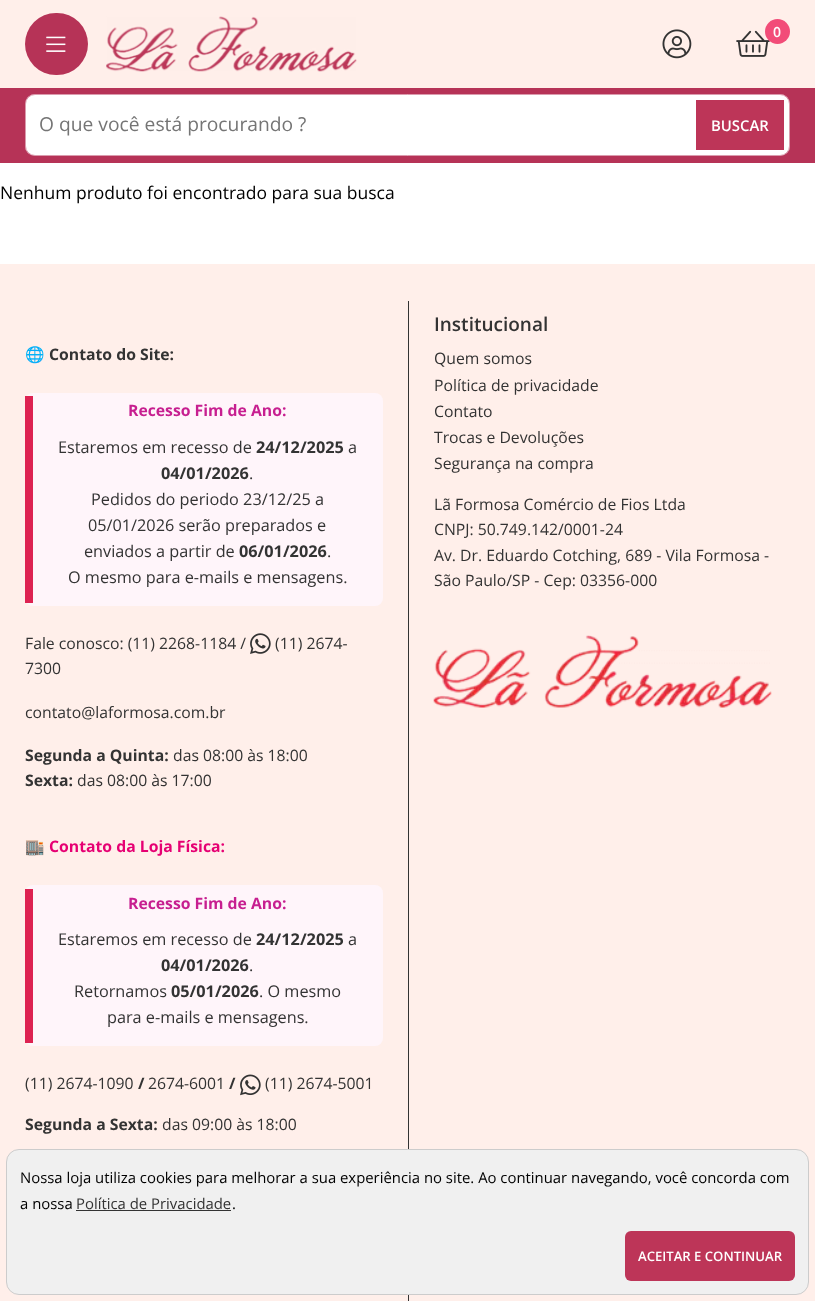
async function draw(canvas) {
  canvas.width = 815;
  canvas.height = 1301;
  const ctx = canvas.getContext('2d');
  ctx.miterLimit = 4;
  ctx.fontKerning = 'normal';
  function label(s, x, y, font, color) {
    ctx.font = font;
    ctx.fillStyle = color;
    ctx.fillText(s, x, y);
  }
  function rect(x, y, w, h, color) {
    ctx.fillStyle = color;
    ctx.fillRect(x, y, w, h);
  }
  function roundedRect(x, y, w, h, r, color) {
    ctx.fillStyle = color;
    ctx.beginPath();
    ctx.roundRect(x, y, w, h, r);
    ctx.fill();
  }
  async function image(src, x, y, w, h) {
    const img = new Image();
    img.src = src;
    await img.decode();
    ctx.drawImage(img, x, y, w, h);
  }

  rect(0, 0, 815, 1301, '#fff');
  rect(0, 0, 815, 88, '#ffefea');
  await image('assets/img1.png', 106, 16, 251, 56);
  roundedRect(25, 13, 63, 62, 31, '#b63357');
  await image('assets/img2.png', 46, 36, 20, 16);
  await image('assets/img3.png', 662, 29, 30, 30);
  await image('assets/img4.png', 736, 30, 34, 27);
  ctx.fillStyle = '#f24c78';
  ctx.beginPath();
  ctx.arc(777.5, 31.5, 12.5, 0, 2 * Math.PI);
  ctx.fill();
  label('0', 773, 37, '600 14px Open Sans', '#fff');
  rect(0, 88, 815, 75, '#b63357');
  roundedRect(25, 94, 765, 62, 10, '#fff');
  ctx.beginPath();
  ctx.roundRect(25.5, 94.5, 764, 61, 9.5);
  ctx.strokeStyle = '#b633577d';
  ctx.stroke();
  label('O que você está procurando ?', 39, 131, '19.25px Open Sans', '#757575');
  rect(696, 100, 88, 50, '#bd3558');
  label('BUSCAR', 711, 131, '600 14.88px Open Sans', '#fff');
  label('Nenhum produto foi encontrado para sua busca', 0, 199, '17.5px Open Sans', '#000');
  rect(0, 264, 815, 1037, '#ffefea');
  label('🌐', 25, 360, 'bold 15.75px Noto Color Emoji', '#333');
  label('Contato do Site:', 49, 360, 'bold 15.75px Open Sans', '#333');
  roundedRect(25, 393, 358, 213, 8, '#fff5fa');
  rect(25, 396, 8, 207, '#dd2251');
  label('Recesso Fim de Ano:', 128, 416, 'bold 15.75px Open Sans', '#c71f90');
  label('Estaremos em recesso de', 58, 453, '16.25px Open Sans', '#333');
  label('24/12/2025', 256, 453, 'bold 16.25px Open Sans', '#333');
  label('a', 348, 453, '16.25px Open Sans', '#333');
  label('04/01/2026', 161, 479, 'bold 16.25px Open Sans', '#333');
  label('.', 249, 479, '16.25px Open Sans', '#333');
  label('Pedidos do periodo 23/12/25 a', 91, 505, '16.25px Open Sans', '#333');
  label('05/01/2026 serão preparados e', 88, 531, '16.25px Open Sans', '#333');
  label('enviados a partir de', 84, 557, '16.25px Open Sans', '#333');
  label('06/01/2026', 239, 557, 'bold 16.25px Open Sans', '#333');
  label('.', 327, 557, '16.25px Open Sans', '#333');
  label('O mesmo para e-mails e mensagens.', 68, 583, '16.25px Open Sans', '#333');
  label('Fale conosco: (11) 2268-1184 /', 25, 649, '15.75px Open Sans', '#333');
  await image('assets/img5.png', 250, 633, 21, 21);
  label('(11) 2674-', 275, 649, '15.75px Open Sans', '#333');
  label('7300', 25, 674, '15.75px Open Sans', '#333');
  label('contato@laformosa.com.br', 25, 718, '15.75px Open Sans', '#333');
  label('Segunda a Quinta:', 25, 761, 'bold 15.75px Open Sans', '#333');
  label('das 08:00 às 18:00', 173, 761, '15.75px Open Sans', '#333');
  label('Sexta:', 25, 786, 'bold 15.75px Open Sans', '#333');
  label('das 08:00 às 17:00', 77, 786, '15.75px Open Sans', '#333');
  label('🏬', 25, 852, 'bold 15.75px Noto Color Emoji', '#e60073');
  label('Contato da Loja Física:', 49, 852, 'bold 15.75px Open Sans', '#e60073');
  roundedRect(25, 885, 358, 161, 8, '#fff5fa');
  rect(25, 889, 8, 154, '#dd2251');
  label('Recesso Fim de Ano:', 128, 909, 'bold 15.75px Open Sans', '#c71f90');
  label('Estaremos em recesso de', 58, 945, '16.25px Open Sans', '#333');
  label('24/12/2025', 256, 945, 'bold 16.25px Open Sans', '#333');
  label('a', 348, 945, '16.25px Open Sans', '#333');
  label('04/01/2026', 161, 971, 'bold 16.25px Open Sans', '#333');
  label('.', 249, 971, '16.25px Open Sans', '#333');
  label('Retornamos', 74, 997, '16.25px Open Sans', '#333');
  label('05/01/2026', 171, 997, 'bold 16.25px Open Sans', '#333');
  label('. O mesmo', 259, 997, '16.25px Open Sans', '#333');
  label('para e-mails e mensagens.', 107, 1023, '16.25px Open Sans', '#333');
  label('(11) 2674-1090', 25, 1089, '15.75px Open Sans', '#333');
  label('/', 138, 1089, 'bold 15.75px Open Sans', '#333');
  label('2674-6001', 148, 1089, '15.75px Open Sans', '#333');
  label('/', 229, 1089, 'bold 15.75px Open Sans', '#333');
  await image('assets/img6.png', 240, 1074, 21, 22);
  label('(11) 2674-5001', 265, 1089, '15.75px Open Sans', '#333');
  label('Segunda a Sexta:', 25, 1130, 'bold 15.75px Open Sans', '#333');
  label('das 09:00 às 18:00', 162, 1130, '15.75px Open Sans', '#333');
  rect(408, 301, 1, 1000, '#333');
  label('Institucional', 434, 331, '600 19px Open Sans', '#333');
  label('Quem somos', 434, 364, '15.75px Open Sans', '#333');
  label('Política de privacidade', 434, 391, '15.75px Open Sans', '#333');
  label('Contato', 434, 417, '15.75px Open Sans', '#333');
  label('Trocas e Devoluções', 434, 443, '15.75px Open Sans', '#333');
  label('Segurança na compra', 434, 469, '15.75px Open Sans', '#333');
  label('Lã Formosa Comércio de Fios Ltda', 434, 510, '15.75px Open Sans', '#333');
  label('CNPJ: 50.749.142/0001-24', 434, 535, '15.75px Open Sans', '#333');
  label('Av. Dr. Eduardo Cotching, 689 - Vila Formosa -', 434, 561, '15.75px Open Sans', '#333');
  label('São Paulo/SP - Cep: 03356-000', 434, 586, '15.75px Open Sans', '#333');
  await image('assets/img7.png', 433, 635, 339, 73);
  ctx.fillStyle = '#f0f0f0';
  ctx.beginPath();
  ctx.roundRect(6.5, 1149.5, 802, 145, 12.5);
  ctx.fill();
  ctx.strokeStyle = '#ccc';
  ctx.stroke();
  label('Nossa loja utiliza cookies para melhorar a sua experiência no site. Ao continuar navegando, você concorda com', 20, 1183, '14.88px Open Sans', '#000');
  label('a nossa', 20, 1209, '14.88px Open Sans', '#000');
  label('Política de Privacidade', 76, 1209, '14.88px Open Sans', '#333');
  rect(76, 1210, 155, 1, '#333');
  label('.', 232, 1209, '14.88px Open Sans', '#000');
  roundedRect(625, 1231, 170, 50, 6, '#bd3558');
  label('ACEITAR E CONTINUAR', 638, 1261, '600 13.1px Open Sans', '#fff');
}

draw(document.querySelector('canvas'));
